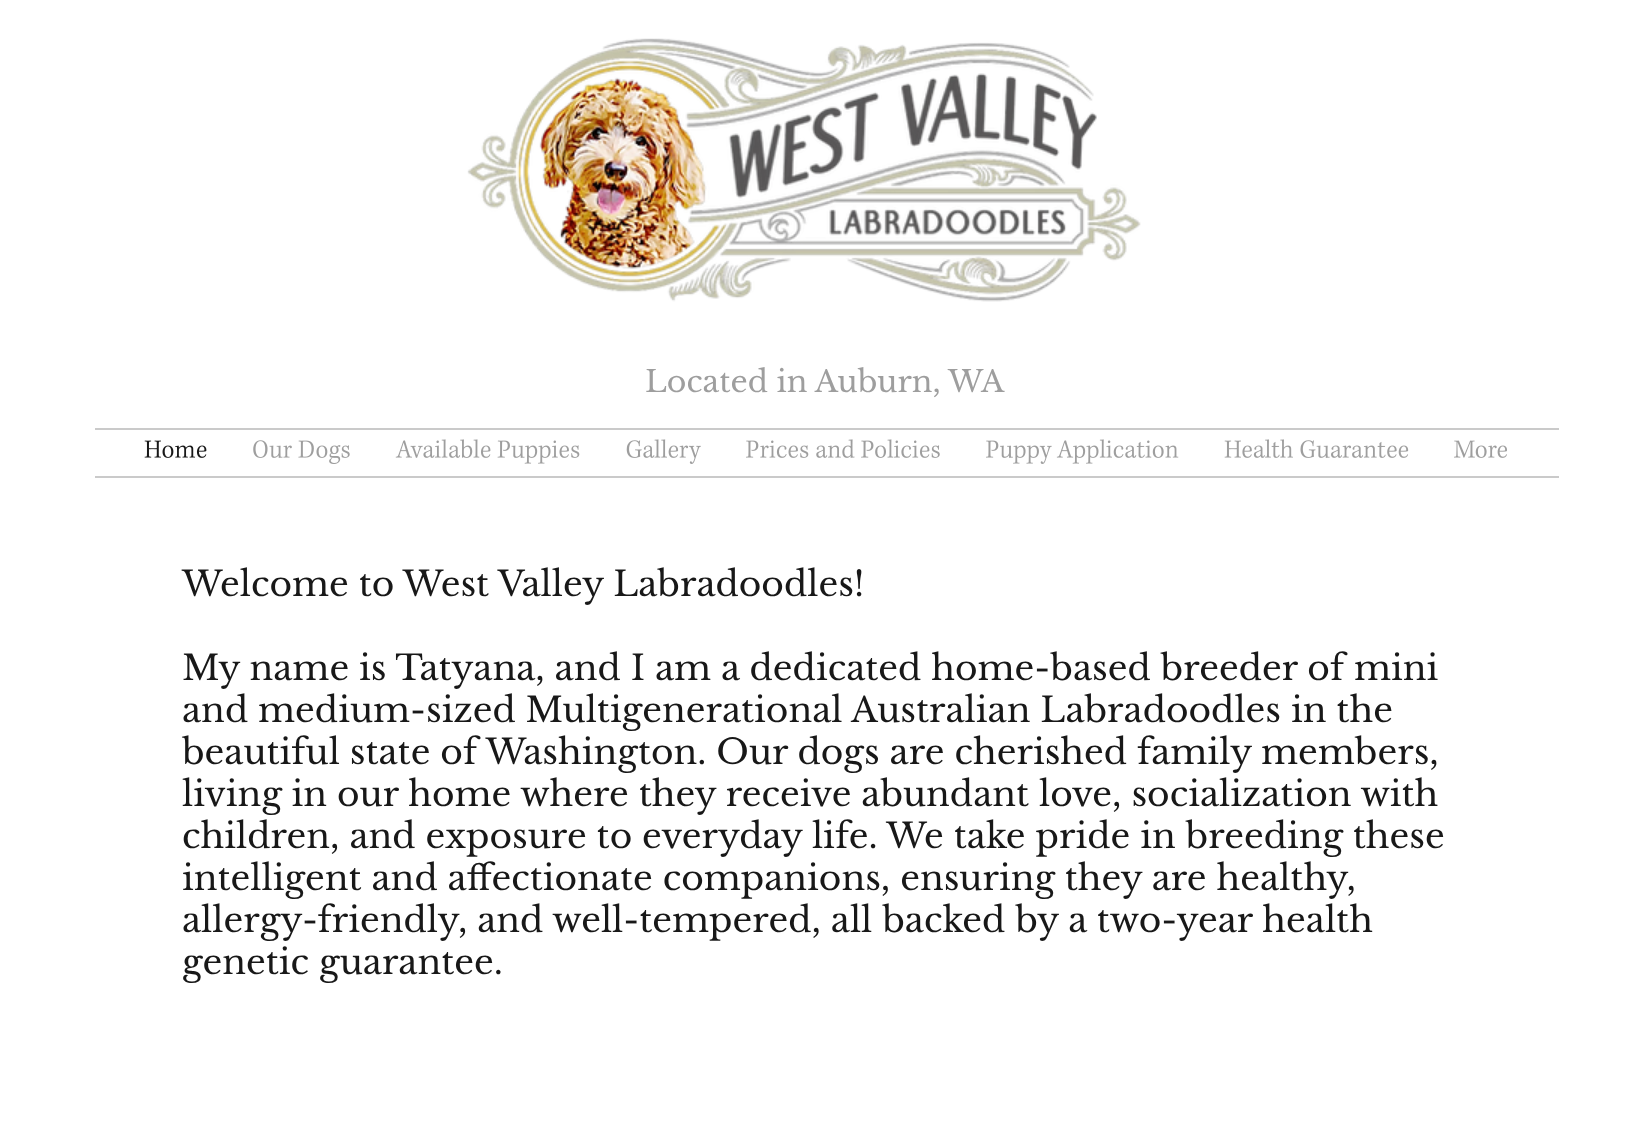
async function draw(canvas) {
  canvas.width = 1630;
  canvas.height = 1147;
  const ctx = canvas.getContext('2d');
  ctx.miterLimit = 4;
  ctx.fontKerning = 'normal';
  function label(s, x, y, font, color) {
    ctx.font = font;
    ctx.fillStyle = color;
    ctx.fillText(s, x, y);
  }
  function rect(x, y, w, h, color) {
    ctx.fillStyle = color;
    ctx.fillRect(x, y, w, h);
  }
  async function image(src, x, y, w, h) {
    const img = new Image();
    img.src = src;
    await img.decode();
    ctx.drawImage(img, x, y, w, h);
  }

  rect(0, 0, 1630, 1147, '#fff');
  await image('assets/img1.png', 467, 38, 674, 264);
  label('Located in Auburn, WA', 645, 392, '30px Libre Baskerville', '#9e9e9e');
  rect(95, 428, 1464, 2, '#cacaca');
  rect(95, 476, 1464, 2, '#cacaca');
  await image('assets/img2.png', 144, 440, 63, 18);
  await image('assets/img3.png', 253, 440, 97, 24);
  await image('assets/img4.png', 395, 439, 185, 25);
  await image('assets/img5.png', 626, 439, 75, 25);
  await image('assets/img6.png', 746, 439, 194, 19);
  await image('assets/img7.png', 986, 439, 193, 25);
  await image('assets/img8.png', 1224, 439, 185, 19);
  await image('assets/img9.png', 1454, 440, 53, 18);
  label('Welcome to West Valley Labradoodles!', 182, 596, '34.5px Libre Baskerville', '#181818');
  label('My name is Tatyana, and I am a dedicated home-based breeder of mini', 182, 680, '34.5px Libre Baskerville', '#181818');
  label('and medium-sized Multigenerational Australian Labradoodles in the', 182, 722, '34.5px Libre Baskerville', '#181818');
  label('beautiful state of Washington. Our dogs are cherished family members,', 182, 764, '34.5px Libre Baskerville', '#181818');
  label('living in our home where they receive abundant love, socialization with', 182, 806, '34.5px Libre Baskerville', '#181818');
  label('children, and exposure to everyday life. We take pride in breeding these', 182, 848, '34.5px Libre Baskerville', '#181818');
  label('intelligent and affectionate companions, ensuring they are healthy,', 182, 890, '34.5px Libre Baskerville', '#181818');
  label('allergy-friendly, and well-tempered, all backed by a two-year health', 182, 932, '34.5px Libre Baskerville', '#181818');
  label('genetic guarantee.', 182, 974, '34.5px Libre Baskerville', '#181818');
}

draw(document.querySelector('canvas'));
